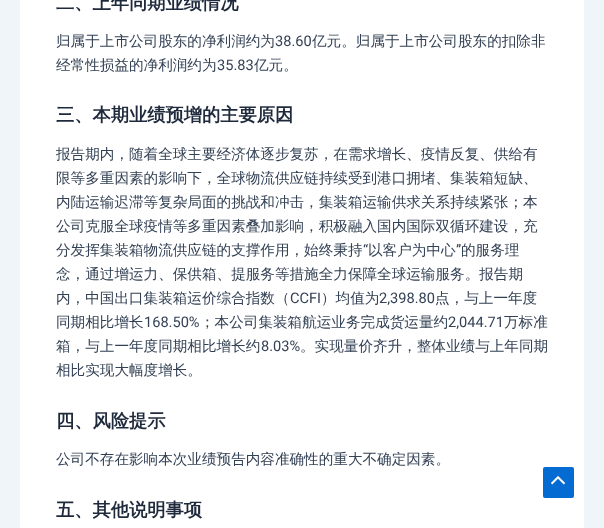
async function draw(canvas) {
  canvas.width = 604;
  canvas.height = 528;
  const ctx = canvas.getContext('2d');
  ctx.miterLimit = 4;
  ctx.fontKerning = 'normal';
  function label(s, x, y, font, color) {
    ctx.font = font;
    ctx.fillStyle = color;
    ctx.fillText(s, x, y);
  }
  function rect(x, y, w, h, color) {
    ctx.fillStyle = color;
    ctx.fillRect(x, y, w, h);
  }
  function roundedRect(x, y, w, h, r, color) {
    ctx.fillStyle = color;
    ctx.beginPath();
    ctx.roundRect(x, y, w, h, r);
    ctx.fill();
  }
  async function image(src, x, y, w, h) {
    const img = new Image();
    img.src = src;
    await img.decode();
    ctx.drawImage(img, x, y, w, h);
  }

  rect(0, 0, 604, 528, '#f0f5fa');
  rect(20, 0, 564, 528, '#fff');
  label('二、上年同期业绩情况', 56, 9, 'bold 18.25px WenQuanYi Zen Hei', '#1e293b');
  label('归属于上市公司股东的净利润约为', 56, 46, '500 14.6px WenQuanYi Zen Hei', '#334155');
  label('38.60', 275, 46, '14.6px Roboto', '#334155');
  label('亿元。归属于上市公司股东的扣除非', 312, 46, '500 14.6px WenQuanYi Zen Hei', '#334155');
  label('经常性损益的净利润约为', 56, 70, '500 14.6px WenQuanYi Zen Hei', '#334155');
  label('35.83', 217, 70, '14.6px Roboto', '#334155');
  label('亿元。', 254, 70, '500 14.6px WenQuanYi Zen Hei', '#334155');
  label('三、本期业绩预增的主要原因', 56, 121, 'bold 18.25px WenQuanYi Zen Hei', '#1e293b');
  label('报告期内，随着全球主要经济体逐步复苏，在需求增长、疫情反复、供给有', 56, 159, '500 14.6px WenQuanYi Zen Hei', '#334155');
  label('限等多重因素的影响下，全球物流供应链持续受到港口拥堵、集装箱短缺、', 56, 183, '500 14.6px WenQuanYi Zen Hei', '#334155');
  label('内陆运输迟滞等复杂局面的挑战和冲击，集装箱运输供求关系持续紧张；本', 56, 207, '500 14.6px WenQuanYi Zen Hei', '#334155');
  label('公司克服全球疫情等多重因素叠加影响，积极融入国内国际双循环建设，充', 56, 231, '500 14.6px WenQuanYi Zen Hei', '#334155');
  label('分发挥集装箱物流供应链的支撑作用，始终秉持', 56, 255, '500 14.6px WenQuanYi Zen Hei', '#334155');
  label('“', 363, 255, '14.6px Roboto', '#334155');
  label('以客户为中心', 368, 255, '500 14.6px WenQuanYi Zen Hei', '#334155');
  label('”', 456, 255, '14.6px Roboto', '#334155');
  label('的服务理', 461, 255, '500 14.6px WenQuanYi Zen Hei', '#334155');
  label('念，通过增运力、保供箱、提服务等措施全力保障全球运输服务。报告期', 56, 279, '500 14.6px WenQuanYi Zen Hei', '#334155');
  label('内，中国出口集装箱运价综合指数（', 56, 303, '500 14.6px WenQuanYi Zen Hei', '#334155');
  label('CCFI', 290, 303, '14.6px Roboto', '#334155');
  label('）均值为', 321, 303, '500 14.6px WenQuanYi Zen Hei', '#334155');
  label('2,398.80', 379, 303, '14.6px Roboto', '#334155');
  label('点，与上一年度', 435, 303, '500 14.6px WenQuanYi Zen Hei', '#334155');
  label('同期相比增长', 56, 327, '500 14.6px WenQuanYi Zen Hei', '#334155');
  label('168.50%', 144, 327, '14.6px Roboto', '#334155');
  label('；本公司集装箱航运业务完成货运量约', 200, 327, '500 14.6px WenQuanYi Zen Hei', '#334155');
  label('2,044.71', 448, 327, '14.6px Roboto', '#334155');
  label('万标准', 504, 327, '500 14.6px WenQuanYi Zen Hei', '#334155');
  label('箱，与上一年度同期相比增长约', 56, 351, '500 14.6px WenQuanYi Zen Hei', '#334155');
  label('8.03%', 261, 351, '14.6px Roboto', '#334155');
  label('。实现量价齐升，整体业绩与上年同期', 300, 351, '500 14.6px WenQuanYi Zen Hei', '#334155');
  label('相比实现大幅度增长。', 56, 375, '500 14.6px WenQuanYi Zen Hei', '#334155');
  label('四、风险提示', 56, 427, 'bold 18.25px WenQuanYi Zen Hei', '#1e293b');
  label('公司不存在影响本次业绩预告内容准确性的重大不确定因素。', 56, 464, '500 14.6px WenQuanYi Zen Hei', '#334155');
  label('五、其他说明事项', 56, 516, 'bold 18.25px WenQuanYi Zen Hei', '#1e293b');
  roundedRect(543, 467, 31, 31, 2, '#046bd2');
  await image('assets/img1.png', 551, 476, 15, 9);
}

draw(document.querySelector('canvas'));
